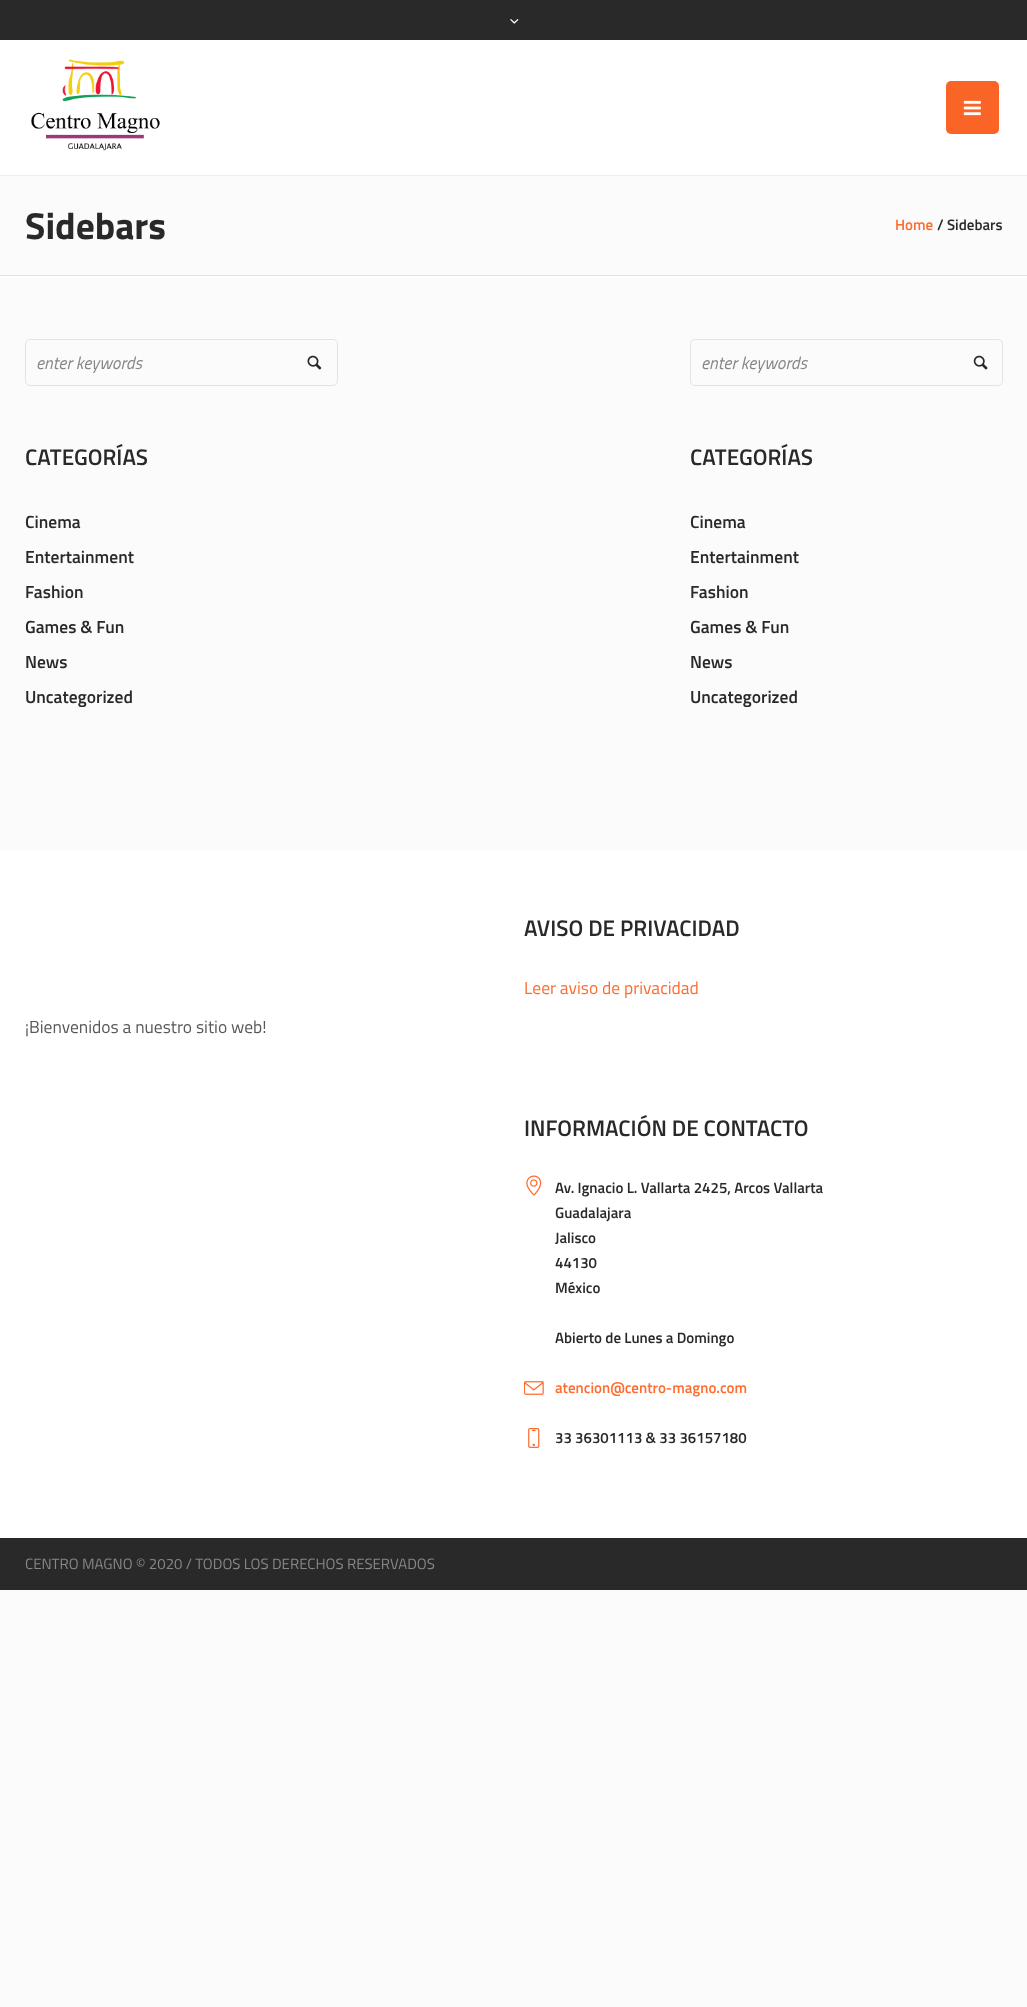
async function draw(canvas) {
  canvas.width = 1027;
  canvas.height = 2007;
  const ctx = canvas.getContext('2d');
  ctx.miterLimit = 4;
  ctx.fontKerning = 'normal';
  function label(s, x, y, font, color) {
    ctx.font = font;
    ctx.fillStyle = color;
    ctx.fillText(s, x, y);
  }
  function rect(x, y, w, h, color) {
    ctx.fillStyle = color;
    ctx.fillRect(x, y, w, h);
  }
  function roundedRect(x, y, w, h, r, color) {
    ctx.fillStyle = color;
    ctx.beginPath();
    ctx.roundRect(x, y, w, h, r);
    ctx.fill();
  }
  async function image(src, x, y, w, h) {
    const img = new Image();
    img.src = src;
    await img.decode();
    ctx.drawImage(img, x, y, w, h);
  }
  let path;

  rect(0, 0, 1027, 2007, '#fbfbfb');
  ctx.fillStyle = '#0000000d';
  ctx.filter = 'blur(0.5px)';
  ctx.beginPath();
  ctx.rect(0, 1, 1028, 175);
  ctx.fill();
  ctx.filter = 'none';
  rect(0, 0, 1027, 40, '#292929');
  await image('assets/img1.png', 510, 19, 9, 5);
  rect(0, 40, 1027, 135, '#fff');
  await image('assets/img2.png', 31, 59, 129, 92);
  roundedRect(946, 81, 53, 53, 5, '#fa6426');
  await image('assets/img3.png', 963, 100, 18, 16);
  ctx.fillStyle = '#fefefe';
  path = new Path2D('M0 276V278H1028V176V276Z');
  ctx.fill(path);
  rect(0, 275, 1027, 1, '#e4e4e4');
  label('Sidebars', 25, 239, 'bold 37.5px Titillium Web', '#292929');
  label('Home', 895, 230, '600 15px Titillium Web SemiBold', '#ff6c2f');
  label('/ Sidebars', 937, 230, '600 15px Titillium Web SemiBold', '#292929');
  ctx.beginPath();
  ctx.roundRect(25.5, 339.5, 312, 46, 4.5);
  ctx.strokeStyle = '#e4e4e4';
  ctx.stroke();
  label('enter keywords', 36, 369, 'italic 17.5px Titillium Web', '#878787');
  await image('assets/img4.png', 307, 355, 15, 15);
  label('CATEGORÍAS', 25, 465, '600 22.5px Titillium Web SemiBold', '#292929');
  label('Cinema', 25, 528, '600 17.5px Titillium Web SemiBold', '#292929');
  label('Entertainment', 25, 563, '600 17.5px Titillium Web SemiBold', '#292929');
  label('Fashion', 25, 598, '600 17.5px Titillium Web SemiBold', '#292929');
  label('Games & Fun', 25, 633, '600 17.5px Titillium Web SemiBold', '#292929');
  label('News', 25, 668, '600 17.5px Titillium Web SemiBold', '#292929');
  label('Uncategorized', 25, 703, '600 17.5px Titillium Web SemiBold', '#292929');
  ctx.beginPath();
  ctx.roundRect(690.5, 339.5, 312, 46, 4.5);
  ctx.stroke();
  label('enter keywords', 701, 369, 'italic 17.5px Titillium Web', '#878787');
  await image('assets/img5.png', 973, 355, 15, 15);
  label('CATEGORÍAS', 690, 465, '600 22.5px Titillium Web SemiBold', '#292929');
  label('Cinema', 690, 528, '600 17.5px Titillium Web SemiBold', '#292929');
  label('Entertainment', 690, 563, '600 17.5px Titillium Web SemiBold', '#292929');
  label('Fashion', 690, 598, '600 17.5px Titillium Web SemiBold', '#292929');
  label('Games & Fun', 690, 633, '600 17.5px Titillium Web SemiBold', '#292929');
  label('News', 690, 668, '600 17.5px Titillium Web SemiBold', '#292929');
  label('Uncategorized', 690, 703, '600 17.5px Titillium Web SemiBold', '#292929');
  rect(0, 851, 1027, 687, '#fff');
  label('AVISO DE PRIVACIDAD', 524, 936, '600 22.5px Titillium Web SemiBold', '#292929');
  label('Leer aviso de privacidad', 524, 994, '17.5px Titillium Web', '#ff6c2f');
  label('¡Bienvenidos a nuestro sitio web!', 25, 1033, '17.5px Titillium Web', '#595959');
  label('INFORMACIÓN DE CONTACTO', 524, 1136, '600 22.5px Titillium Web SemiBold', '#292929');
  await image('assets/img6.png', 526, 1175, 16, 21);
  label('Av. Ignacio L. Vallarta 2425, Arcos Vallarta', 555, 1193, '600 15px Titillium Web SemiBold', '#292929');
  label('Guadalajara', 555, 1218, '600 15px Titillium Web SemiBold', '#292929');
  label('Jalisco', 555, 1243, '600 15px Titillium Web SemiBold', '#292929');
  label('44130', 555, 1268, '600 15px Titillium Web SemiBold', '#292929');
  label('México', 555, 1293, '600 15px Titillium Web SemiBold', '#292929');
  label('Abierto de Lunes a Domingo', 555, 1343, '600 15px Titillium Web SemiBold', '#292929');
  await image('assets/img7.png', 524, 1381, 20, 14);
  label('atencion@centro-magno.com', 555, 1393, '600 15px Titillium Web SemiBold', '#ff6c2f');
  await image('assets/img8.png', 528, 1428, 12, 20);
  label('33 36301113 & 33 36157180', 555, 1443, '600 15px Titillium Web SemiBold', '#292929');
  rect(0, 1538, 1027, 52, '#292929');
  label('CENTRO MAGNO © 2020 / TODOS LOS DERECHOS RESERVADOS', 25, 1569, '15px Titillium Web', '#878787');
}

draw(document.querySelector('canvas'));
